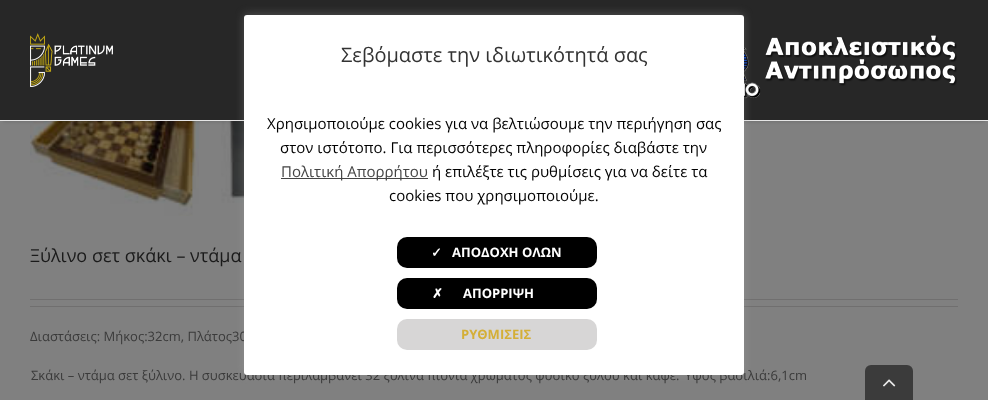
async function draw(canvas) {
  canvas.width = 988;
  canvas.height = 400;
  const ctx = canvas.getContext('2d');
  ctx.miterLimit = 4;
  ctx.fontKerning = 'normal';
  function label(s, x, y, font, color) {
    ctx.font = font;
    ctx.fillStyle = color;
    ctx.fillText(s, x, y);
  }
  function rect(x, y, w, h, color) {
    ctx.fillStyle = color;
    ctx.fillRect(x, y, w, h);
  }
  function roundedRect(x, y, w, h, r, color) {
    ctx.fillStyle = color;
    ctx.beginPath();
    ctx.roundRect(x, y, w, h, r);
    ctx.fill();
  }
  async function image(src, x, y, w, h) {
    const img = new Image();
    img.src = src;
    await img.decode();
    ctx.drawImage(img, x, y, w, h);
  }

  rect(0, 0, 988, 400, '#808080');
  await image('assets/img3.png', 30, 121, 169, 95);
  await image('assets/img4.png', 221, 121, 23, 82);
  ctx.fillStyle = '#0000001f';
  ctx.filter = 'blur(1.5px)';
  ctx.beginPath();
  ctx.rect(3, 7, 982, 115);
  ctx.fill();
  ctx.filter = 'none';
  rect(0, 0, 988, 120, '#272727');
  rect(0, 120, 988, 1, '#e5e5e5');
  await image('assets/img2.png', 744, 35, 213, 64);
  rect(30, 299, 928, 1, '#706f6f');
  rect(30, 306, 928, 1, '#706f6f');
  ctx.fillStyle = '#acabab4d';
  ctx.filter = 'blur(5px)';
  ctx.beginPath();
  ctx.roundRect(244, 14, 500, 360, 3);
  ctx.fill();
  ctx.filter = 'none';
  label('Διαστάσεις: Μήκος:32cm, Πλάτος30', 30, 341, '13px Open Sans', '#3a3a3a');
  label('Σκάκι – ντάμα σετ ξύλινο. H συσκευασία περιλαμβάνει 32 ξύλινα πιόνια χρώματος φυσικό ξύλου και καφέ. Ύψος βασιλιά:6,1cm', 31, 380, '13px Open Sans', '#3a3a3a');
  roundedRect(244, 15, 500, 360, 3, '#fff');
  label('Σεβόμαστε την ιδιωτικότητά σας', 341, 62, '20px Open Sans', '#333');
  label('Χρησιμοποιούμε cookies για να βελτιώσουμε την περιήγηση σας', 267, 129, '15px Open Sans', '#000');
  label('στον ιστότοπο. Για περισσότερες πληροφορίες διαβάστε την', 280, 153, '15px Open Sans', '#000');
  rect(281, 178, 147, 1, '#444');
  label('Πολιτική Απορρήτου', 281, 177, '15px Open Sans', '#444');
  label('ή επιλέξτε τις ρυθμίσεις για να δείτε τα', 432, 177, '15px Open Sans', '#000');
  label('cookies που χρησιμοποιούμε.', 389, 201, '15px Open Sans', '#000');
  roundedRect(397, 237, 200, 31, 10, '#000');
  label('✓', 431, 257, 'bold 13px DejaVu Sans', '#fff');
  label('ΑΠΟΔΟΧΗ ΟΛΩΝ', 452, 257, 'bold 13px Open Sans', '#fff');
  roundedRect(397, 278, 200, 31, 10, '#000');
  label('✗', 432, 298, 'bold 13px DejaVu Sans', '#fff');
  label('ΑΠΟΡΡΙΨΗ', 463, 298, 'bold 13px Open Sans', '#fff');
  roundedRect(397, 319, 200, 31, 10, '#d7d6d6');
  label('ΡΥΘΜΙΣΕΙΣ', 461, 339, 'bold 13px Open Sans', '#d4af37');
  await image('assets/img1.png', 30, 33, 83, 54);
  label('Ξύλινο σετ σκάκι – ντάμα', 30, 262, '18px Open Sans', '#1a1a1a');
  ctx.fillStyle = '#3b3b3b';
  ctx.beginPath();
  ctx.roundRect(865, 365, 48, 35, [6, 6, 0, 0]);
  ctx.fill();
  await image('assets/img5.png', 883, 379, 13, 8);
}

draw(document.querySelector('canvas'));
